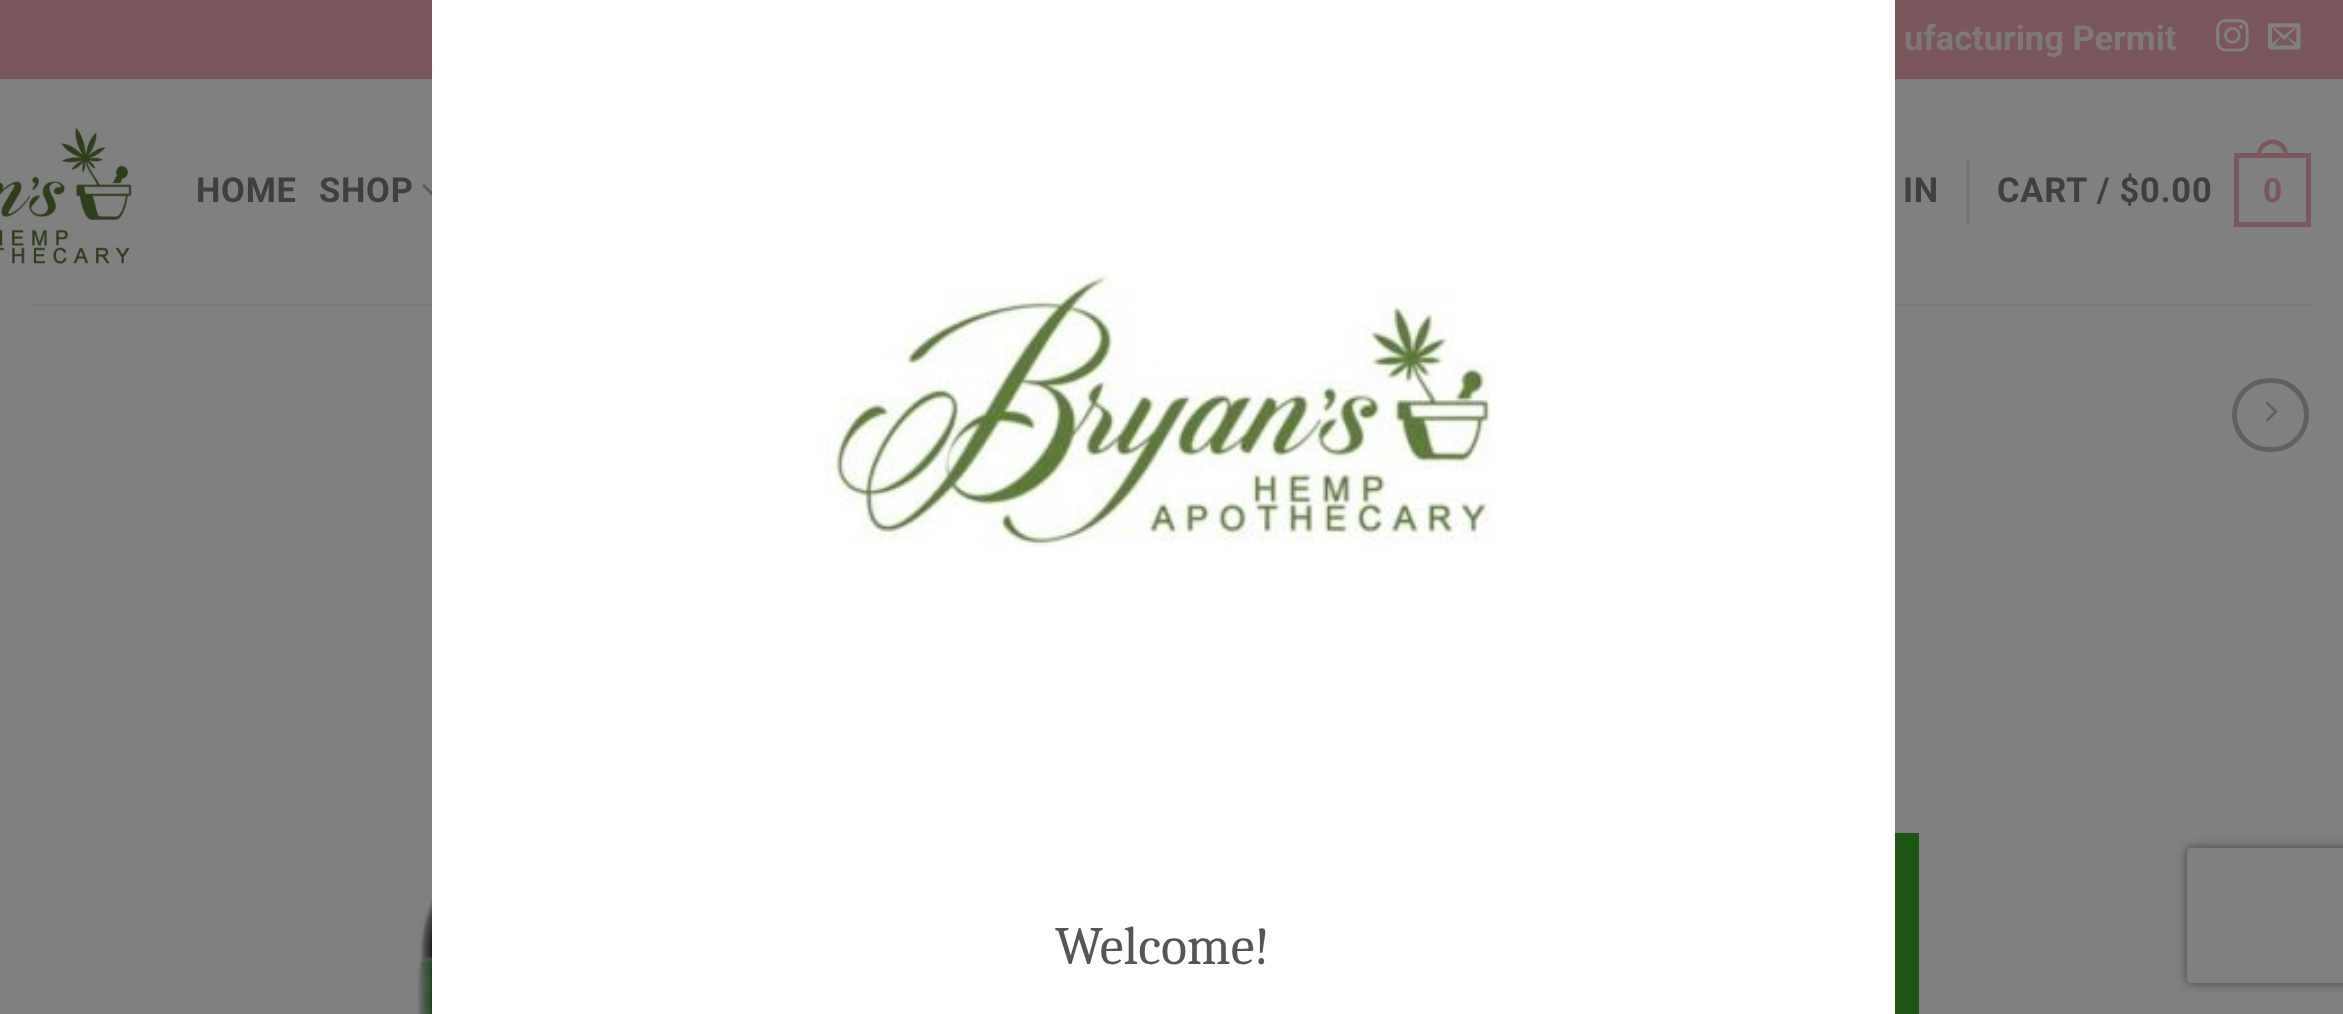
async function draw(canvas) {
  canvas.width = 2343;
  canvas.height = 1014;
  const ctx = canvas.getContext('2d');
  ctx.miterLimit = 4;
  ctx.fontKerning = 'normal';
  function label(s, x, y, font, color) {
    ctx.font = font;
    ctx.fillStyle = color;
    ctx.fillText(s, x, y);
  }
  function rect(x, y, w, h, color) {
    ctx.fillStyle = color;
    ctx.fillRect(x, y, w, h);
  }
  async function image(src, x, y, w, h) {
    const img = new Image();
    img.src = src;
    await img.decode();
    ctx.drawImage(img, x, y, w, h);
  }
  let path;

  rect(0, 0, 2343, 1014, '#808080');
  rect(0, 0, 2343, 79, '#79575c');
  label('ufacturing Permit', 1904, 50, 'bold 34.5px Roboto', '#7e7879');
  await image('assets/img1.png', 2216, 19, 33, 33);
  await image('assets/img2.png', 2268, 23, 33, 27);
  await image('assets/img3.png', 0, 127, 132, 137);
  ctx.letterSpacing = '0.75px';
  label('HOME', 196, 202, 'bold 34.5px Roboto', '#3f3f3f');
  label('SHOP', 319, 202, 'bold 34.5px Roboto', '#3f3f3f');
  await image('assets/img4.png', 422, 184, 10, 12);
  label('IN', 1903, 202, 'bold 34.5px Roboto', '#3f3f3f');
  rect(1967, 158, 2, 67, '#737373');
  label('CART / $0.00', 1997, 202, 'bold 34.5px Roboto', '#3f3f3f');
  ctx.strokeStyle = '#79575c';
  ctx.lineWidth = 5;
  ctx.strokeRect(2236.5, 155.5, 72, 69);
  ctx.fillStyle = '#79575c';
  path = new Path2D('M2272.5 139.5C2281 139.5 2288 146.5 2288 155V157.5H2257V155C2257 146.5 2264 139.5 2272.5 139.5ZM2272.5 144C2278.5 144 2284 149 2284 155V157.5H2261V155C2261 149 2266.5 144 2272.5 144Z');
  ctx.fill(path, 'evenodd');
  label('0', 2263, 202, 'bold 34.5px Liberation Sans', '#79575c');
  rect(34, 304, 2277, 2, '#797979');
  await image('assets/img5.png', 417, 421, 15, 593);
  rect(1895, 833, 24, 181, '#1e5714');
  ctx.beginPath();
  ctx.roundRect(2234.5, 380.5, 72, 69, 34.5);
  ctx.strokeStyle = '#606060';
  ctx.stroke();
  await image('assets/img6.png', 2265, 401, 13, 21);
  rect(432, 0, 1463, 1014, '#fff');
  await image('assets/img7.png', 816, 272, 677, 277);
  ctx.letterSpacing = '0px';
  label('Welcome!', 1055, 964, '54px Caladea', '#555');
  ctx.save();
  path = new Path2D('M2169 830H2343V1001H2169ZM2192 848H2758C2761 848 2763 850 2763 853V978C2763 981 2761 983 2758 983H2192C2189 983 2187 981 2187 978V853C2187 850 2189 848 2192 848Z');
  ctx.clip(path, 'evenodd');
  ctx.fillStyle = '#404040';
  ctx.filter = 'blur(5.5px)';
  ctx.beginPath();
  ctx.roundRect(2187, 848, 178, 135, 5);
  ctx.fill();
  ctx.filter = 'none';
  ctx.restore();
}

draw(document.querySelector('canvas'));
